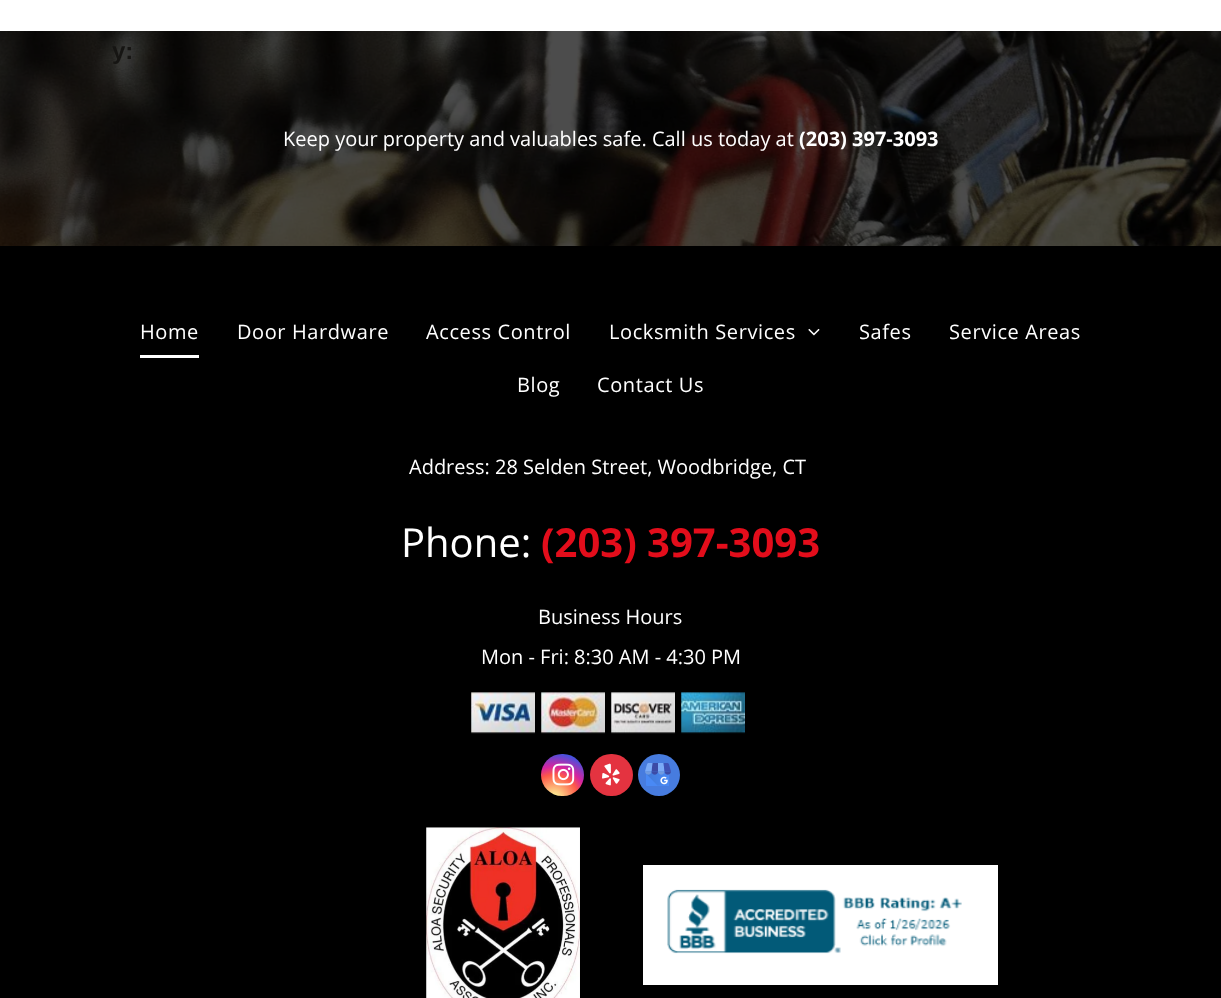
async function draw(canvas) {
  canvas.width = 1221;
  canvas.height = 998;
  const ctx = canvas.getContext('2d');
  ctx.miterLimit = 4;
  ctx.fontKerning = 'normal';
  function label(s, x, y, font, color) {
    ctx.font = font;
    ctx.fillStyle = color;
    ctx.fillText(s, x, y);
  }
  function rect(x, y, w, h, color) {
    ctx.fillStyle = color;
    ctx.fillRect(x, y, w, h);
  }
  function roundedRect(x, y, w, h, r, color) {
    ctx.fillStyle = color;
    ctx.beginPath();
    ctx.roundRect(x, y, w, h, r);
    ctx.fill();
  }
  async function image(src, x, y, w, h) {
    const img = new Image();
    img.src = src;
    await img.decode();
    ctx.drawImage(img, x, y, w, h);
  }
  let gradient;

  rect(0, 0, 1221, 998, '#fff');
  await image('assets/img1.png', 0, 31, 1221, 215);
  label('y:', 112, 59, 'bold 24px Liberation Sans', '#161513');
  label('Keep your property and valuables safe. Call us today at', 283, 146, '20px Open Sans', '#fff');
  label('(203) 397-3093', 799, 146, 'bold 20px Open Sans', '#fff');
  rect(0, 246, 1221, 752, '#000');
  ctx.letterSpacing = '0.6px';
  label('Home', 140, 339, '20px Open Sans', '#fff');
  rect(140, 355, 59, 3, '#fff');
  label('Door Hardware', 237, 339, '20px Open Sans', '#fff');
  label('Access Control', 426, 339, '20px Open Sans', '#fff');
  label('Locksmith Services', 609, 339, '20px Open Sans', '#fff');
  await image('assets/img2.png', 808, 328, 12, 8);
  label('Safes', 859, 339, '20px Open Sans', '#fff');
  label('Service Areas', 949, 339, '20px Open Sans', '#fff');
  label('Blog', 517, 392, '20px Open Sans', '#fff');
  label('Contact Us', 597, 392, '20px Open Sans', '#fff');
  ctx.letterSpacing = '0px';
  label('Address: 28 Selden Street, Woodbridge, CT', 409, 474, '20px Open Sans', '#fff');
  label('Phone:', 401, 557, '40px Open Sans', '#fff');
  label('(203) 397-3093', 541, 557, 'bold 40px Open Sans', '#e30d1b');
  label('Business Hours', 538, 624, '20px Open Sans', '#fff');
  label('Mon - Fri: 8:30 AM - 4:30 PM', 481, 664, '20px Open Sans', '#fff');
  await image('assets/img3.png', 471, 692, 64, 42);
  await image('assets/img4.png', 541, 692, 64, 42);
  await image('assets/img5.png', 611, 692, 64, 42);
  await image('assets/img6.png', 681, 692, 64, 42);
  gradient = ctx.createRadialGradient(554, 799, 0, 554, 799, 54);
  gradient.addColorStop(0, '#fdf497');
  gradient.addColorStop(0.05, '#fdf497');
  gradient.addColorStop(0.45, '#fd5949');
  gradient.addColorStop(0.6, '#d6249f');
  gradient.addColorStop(0.9, '#285aeb');
  ctx.fillStyle = gradient;
  ctx.beginPath();
  ctx.roundRect(541, 754, 43, 42, 21);
  ctx.fill();
  await image('assets/img7.png', 552, 763, 23, 23);
  roundedRect(590, 754, 43, 42, 21, '#e43340');
  await image('assets/img8.png', 602, 763, 18, 23);
  ctx.fillStyle = '#477cdf';
  ctx.beginPath();
  ctx.arc(659, 775, 21, 0, 2 * Math.PI);
  ctx.fill();
  await image('assets/img9.png', 645, 763, 26, 23);
  await image('assets/img10.png', 426, 827, 154, 171);
  rect(643, 865, 355, 120, '#fff');
  await image('assets/img11.png', 667, 889, 295, 65);
}

draw(document.querySelector('canvas'));
